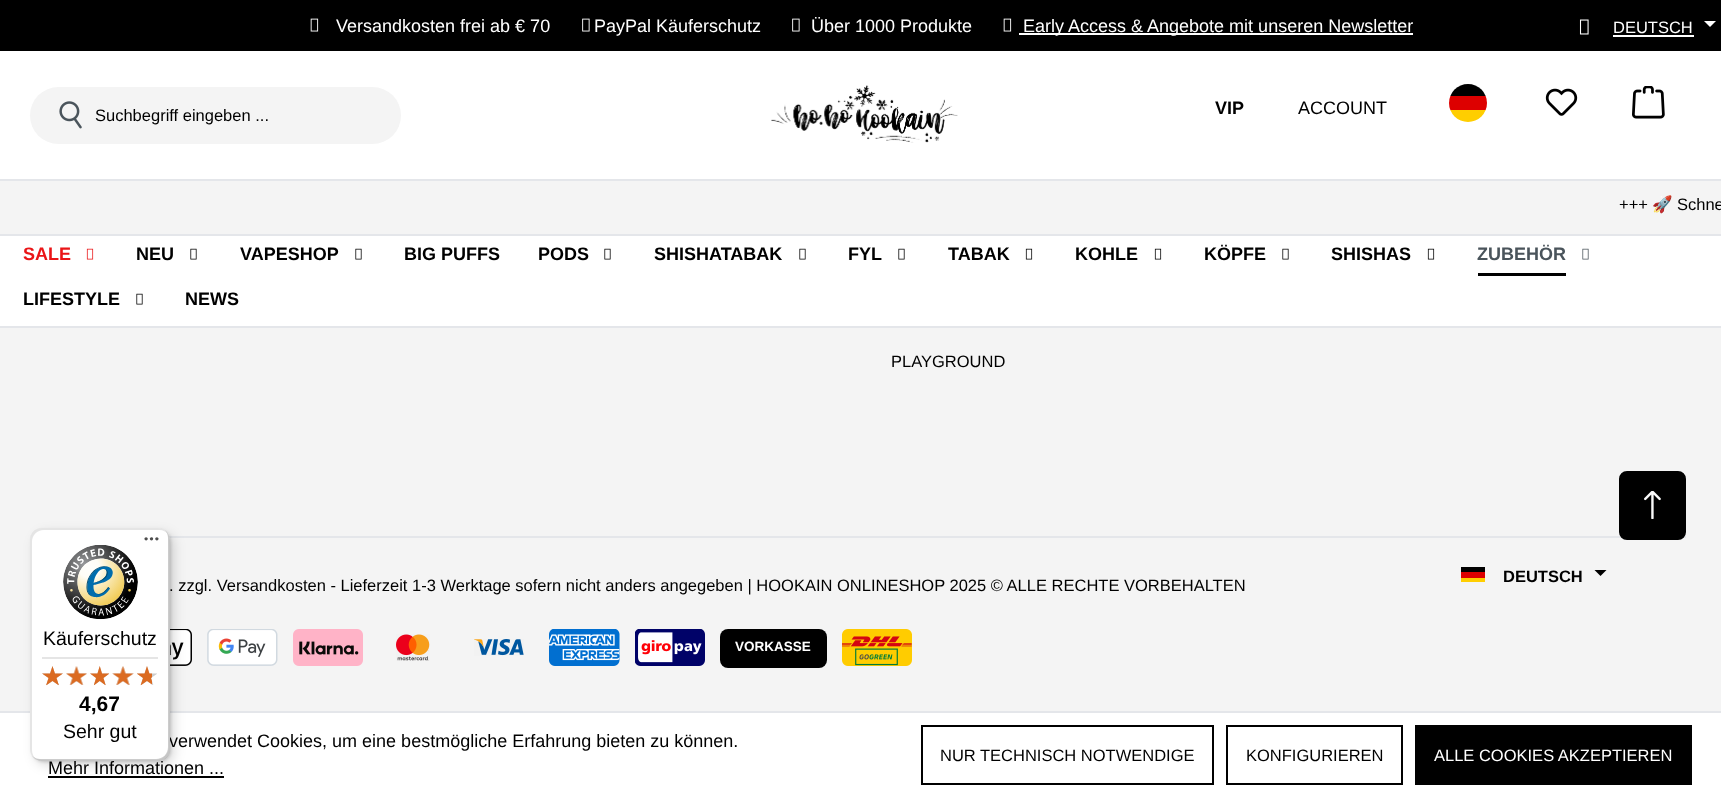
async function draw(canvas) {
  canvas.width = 1721;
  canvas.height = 796;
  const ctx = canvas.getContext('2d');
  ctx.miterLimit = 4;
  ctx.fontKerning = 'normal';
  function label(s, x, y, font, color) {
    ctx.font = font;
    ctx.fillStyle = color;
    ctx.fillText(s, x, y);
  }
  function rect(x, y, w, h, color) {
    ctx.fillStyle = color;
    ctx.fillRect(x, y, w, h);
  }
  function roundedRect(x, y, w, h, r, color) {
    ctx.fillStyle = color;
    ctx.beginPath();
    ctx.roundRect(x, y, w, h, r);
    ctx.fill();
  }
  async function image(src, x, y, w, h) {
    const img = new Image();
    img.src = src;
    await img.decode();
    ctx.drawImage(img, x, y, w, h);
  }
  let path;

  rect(0, 0, 1721, 796, '#fff');
  rect(0, 0, 1721, 51, '#000');
  await image('assets/img1.png', 310, 18, 9, 14);
  label('Versandkosten frei ab € 70', 336, 32, '18px Liberation Sans', '#fff');
  await image('assets/img2.png', 582, 18, 8, 14);
  label('PayPal Käuferschutz', 594, 32, '18px Liberation Sans', '#fff');
  await image('assets/img2.png', 792, 18, 8, 14);
  label('Über 1000 Produkte', 811, 32, '18px Liberation Sans', '#fff');
  await image('assets/img1.png', 1003, 18, 9, 14);
  rect(1019, 33, 394, 2, '#fff');
  label('Early Access & Angebote mit unseren Newsletter', 1023, 32, '18px Liberation Sans', '#fff');
  await image('assets/img3.png', 1579, 19, 10, 16);
  label('DEUTSCH', 1613, 33, '16.5px Liberation Sans', '#fff');
  rect(1613, 35, 81, 2, '#fff');
  path = new Path2D('M1704 21H1716L1710 27Z');
  ctx.fill(path);
  roundedRect(30, 87, 371, 57, 28.5, '#f4f4f4');
  await image('assets/img4.png', 59, 101, 23, 28);
  label('Suchbegriff eingeben ...', 95, 121, '16.5px Liberation Sans', '#000');
  await image('assets/img5.png', 771, 85, 187, 58);
  label('VIP', 1215, 114, 'bold 18px Liberation Sans', '#000');
  label('ACCOUNT', 1298, 114, '18px Liberation Sans', '#000');
  ctx.save();
  ctx.beginPath();
  ctx.roundRect(1449, 84, 38, 38, 19);
  ctx.clip();
  rect(1450, 84, 36, 12, '#000');
  rect(1449, 96, 38, 14, '#d00');
  rect(1450, 110, 36, 12, '#ffce00');
  ctx.restore();
  await image('assets/img6.png', 1545, 88, 33, 28);
  await image('assets/img7.png', 1632, 86, 33, 33);
  rect(0, 181, 1721, 53, '#f4f4f4');
  rect(0, 179, 1721, 2, '#e4e6ea');
  rect(0, 234, 1721, 2, '#e4e6ea');
  label('+++', 1619, 210, '16.5px Liberation Sans', '#000');
  label('🚀', 1652, 210, '16.5px Noto Color Emoji', '#000');
  label('Schne', 1677, 210, '16.5px Liberation Sans', '#000');
  rect(0, 326, 1721, 2, '#e4e6ea');
  label('SALE', 23, 260, 'bold 18px Liberation Sans', '#ea1517');
  await image('assets/img8.png', 86, 248, 8, 12);
  label('NEU', 136, 260, 'bold 18px Liberation Sans', '#000');
  await image('assets/img9.png', 190, 248, 7, 12);
  label('VAPESHOP', 240, 260, 'bold 18px Liberation Sans', '#000');
  await image('assets/img9.png', 355, 248, 7, 12);
  label('BIG PUFFS', 404, 260, 'bold 18px Liberation Sans', '#000');
  label('PODS', 538, 260, 'bold 18px Liberation Sans', '#000');
  await image('assets/img9.png', 604, 248, 7, 12);
  label('SHISHATABAK', 654, 260, 'bold 18px Liberation Sans', '#000');
  await image('assets/img9.png', 799, 248, 7, 12);
  label('FYL', 848, 260, 'bold 18px Liberation Sans', '#000');
  await image('assets/img9.png', 898, 248, 7, 12);
  label('TABAK', 948, 260, 'bold 18px Liberation Sans', '#000');
  await image('assets/img10.png', 1025, 248, 8, 12);
  label('KOHLE', 1075, 260, 'bold 18px Liberation Sans', '#000');
  await image('assets/img10.png', 1154, 248, 8, 12);
  label('KÖPFE', 1204, 260, 'bold 18px Liberation Sans', '#000');
  await image('assets/img9.png', 1282, 248, 7, 12);
  label('SHISHAS', 1331, 260, 'bold 18px Liberation Sans', '#000');
  await image('assets/img10.png', 1427, 248, 8, 12);
  rect(1478, 273, 88, 3, '#000');
  label('ZUBEHÖR', 1477, 260, 'bold 18px Liberation Sans', '#4a545b');
  await image('assets/img11.png', 1582, 248, 7, 12);
  label('LIFESTYLE', 23, 305, 'bold 18px Liberation Sans', '#000');
  await image('assets/img9.png', 136, 293, 7, 12);
  label('NEWS', 185, 305, 'bold 18px Liberation Sans', '#000');
  rect(0, 328, 1721, 383, '#f4f4f4');
  label('PLAYGROUND', 891, 367, '16.5px Liberation Sans', '#000');
  rect(169, 536, 1517, 2, '#e4e6ea');
  rect(1461, 567, 24, 5, '#000');
  rect(1461, 572, 24, 6, '#d00');
  rect(1461, 578, 24, 4, '#ffce00');
  label('DEUTSCH', 1503, 582, 'bold 16.5px Liberation Sans', '#000');
  path = new Path2D('M1594.5 570H1606.5L1600.5 576Z');
  ctx.fill(path);
  label('. zzgl. Versandkosten - Lieferzeit 1-3 Werktage sofern nicht anders angegeben | HOOKAIN ONLINESHOP 2025 © ALLE RECHTE VORBEHALTEN', 169, 591, '16.5px Liberation Sans', '#000');
  await image('assets/img12.png', 170, 629, 22, 37);
  await image('assets/img13.png', 207, 629, 71, 37);
  await image('assets/img14.png', 293, 629, 70, 37);
  await image('assets/img15.png', 396, 634, 34, 27);
  await image('assets/img16.png', 474, 639, 50, 17);
  await image('assets/img17.png', 549, 629, 71, 37);
  await image('assets/img18.png', 635, 629, 70, 37);
  roundedRect(720, 629, 107, 39, 8, '#000');
  label('VORKASSE', 735, 651, 'bold 13.5px Liberation Sans', '#fff');
  await image('assets/img19.png', 842, 629, 70, 37);
  ctx.fillStyle = '#000';
  ctx.beginPath();
  ctx.roundRect(1620, 472, 65, 67, 7);
  ctx.fill();
  ctx.strokeStyle = '#000';
  ctx.lineWidth = 2;
  ctx.stroke();
  await image('assets/img20.png', 1644, 491, 17, 28);
  rect(0, 711, 1721, 2, '#e4e6ea');
  rect(48, 776, 176, 2, '#000');
  ctx.fillStyle = '#00000026';
  ctx.filter = 'blur(6px)';
  ctx.beginPath();
  ctx.roundRect(35, 533, 139, 232, 12);
  ctx.fill();
  ctx.filter = 'none';
  ctx.filter = 'blur(1.5px)';
  ctx.beginPath();
  ctx.roundRect(32, 530, 139, 232, 12);
  ctx.fill();
  ctx.filter = 'none';
  label('verwendet Cookies, um eine bestmögliche Erfahrung bieten zu können.', 169, 747, '18px Liberation Sans', '#000');
  label('Mehr Informationen ...', 48, 774, '18px Liberation Sans', '#000');
  roundedRect(30, 528, 140, 233, 12, '#fff');
  ctx.fillStyle = '#0000001a';
  path = new Path2D('M44 530H159C163 530 167 532 169 535C167 531 163 528 158 528H42C35 528 30 533 30 540V749C30 754 33 758 37 760C34 758 32 754 32 750V542C32 535 37 530 44 530Z');
  ctx.fill(path);
  ctx.fillStyle = '#00000033';
  path = new Path2D('M32 756C35 759 38 761 42 761H158C165 761 170 756 170 749V540C170 536 168 533 165 530C167 533 168 535 168 538V747C168 754 163 759 156 759H40C37 759 35 758 32 756Z');
  ctx.fill(path);
  ctx.fillStyle = '#32323233';
  path = new Path2D('M33 757C35 759 38 761 42 761H158C165 761 170 756 170 749V540C170 536 168 533 166 531C168 533 169 536 169 539V748C169 754 163 760 157 760H41C38 760 35 759 33 757Z');
  ctx.fill(path);
  ctx.fillStyle = '#ffffff4d';
  path = new Path2D('M32 755C34 759 37 761 42 761H158C165 761 170 756 170 749V540C170 535 168 532 164 530C167 532 169 535 169 539V748C169 754 163 760 157 760H41C37 760 34 758 32 755Z');
  ctx.fill(path);
  await image('assets/img21.png', 144, 537, 15, 4);
  await image('assets/img22.png', 63, 545, 75, 75);
  label('Käuferschutz', 43, 645, '19.5px Liberation Sans', '#000');
  rect(42, 657, 116, 2, '#e5e5e5');
  await image('assets/img23.png', 42, 666, 21, 19);
  await image('assets/img24.png', 66, 666, 21, 19);
  await image('assets/img25.png', 90, 666, 19, 19);
  await image('assets/img26.png', 112, 666, 22, 19);
  await image('assets/img27.png', 137, 666, 20, 19);
  await image('assets/img28.png', 42, 666, 21, 20);
  await image('assets/img29.png', 66, 666, 21, 19);
  await image('assets/img30.png', 90, 666, 20, 20);
  await image('assets/img31.png', 112, 666, 22, 19);
  await image('assets/img32.png', 137, 666, 15, 20);
  label('4,67', 79, 711, 'bold 21px Liberation Sans', '#000');
  label('Sehr gut', 63, 738, '19.5px Liberation Sans', '#000');
  ctx.strokeRect(922, 726, 291, 58);
  label('NUR TECHNISCH NOTWENDIGE', 940, 761, '16.5px Liberation Sans', '#000');
  ctx.strokeRect(1227, 726, 175, 58);
  label('KONFIGURIEREN', 1246, 761, '16.5px Liberation Sans', '#000');
  rect(1415, 725, 277, 60, '#000');
  label('ALLE COOKIES AKZEPTIEREN', 1434, 761, '16.5px Liberation Sans', '#fff');
}

draw(document.querySelector('canvas'));
